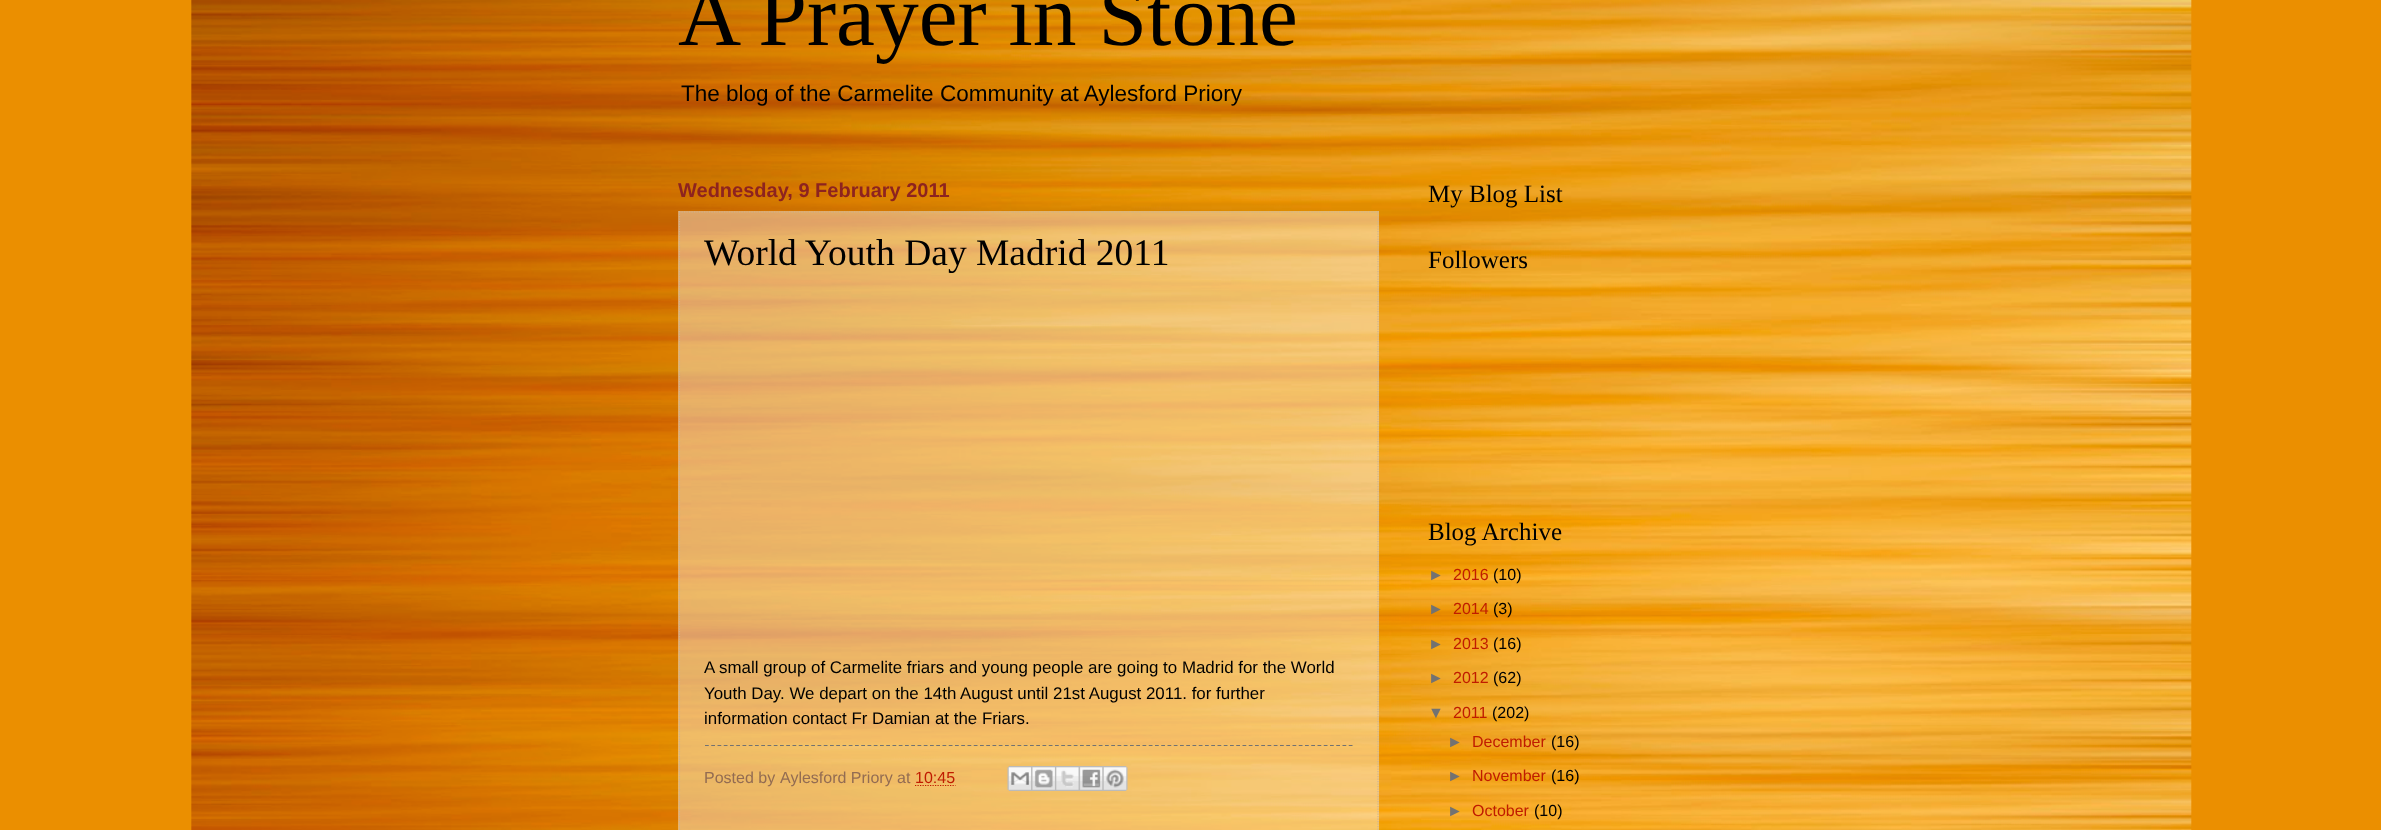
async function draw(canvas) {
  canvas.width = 2381;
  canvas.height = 830;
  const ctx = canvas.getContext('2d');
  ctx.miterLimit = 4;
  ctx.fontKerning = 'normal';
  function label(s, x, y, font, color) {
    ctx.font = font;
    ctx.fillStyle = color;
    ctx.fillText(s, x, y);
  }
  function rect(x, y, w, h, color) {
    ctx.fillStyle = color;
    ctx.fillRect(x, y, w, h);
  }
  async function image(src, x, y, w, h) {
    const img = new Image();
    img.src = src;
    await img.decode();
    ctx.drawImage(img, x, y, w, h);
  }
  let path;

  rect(0, 0, 2381, 830, '#eb8f00');
  await image('assets/img1.png', 191, 0, 2001, 830);
  label('A Prayer in Stone', 678, 45, '87.5px Liberation Serif', '#000');
  label('The blog of the Carmelite Community at Aylesford Priory', 681, 101, '22.5px Liberation Sans', '#000');
  label('Wednesday, 9 February 2011', 678, 197, 'bold 20px Liberation Sans', '#8d231f');
  rect(678, 211, 701, 619, '#ffffff66');
  path = new Path2D('M679 212H1379');
  ctx.strokeStyle = '#cab396';
  ctx.lineWidth = 1.2;
  ctx.setLineDash([1.25, 1.25]);
  ctx.stroke(path);
  path = new Path2D('M1378 211V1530');
  ctx.stroke(path);
  path = new Path2D('M679.5 211V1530');
  ctx.stroke(path);
  label('World Youth Day Madrid 2011', 704, 265, '37.5px Liberation Serif', '#000');
  label('A small group of Carmelite friars and young people are going to Madrid for the World', 704, 673, '16.9px Liberation Sans', '#000');
  label('Youth Day. We depart on the 14th August until 21st August 2011. for further', 704, 699, '16.9px Liberation Sans', '#000');
  label('information contact Fr Damian at the Friars.', 704, 724, '16.9px Liberation Sans', '#000');
  path = new Path2D('M705 745.5H1352.5');
  ctx.strokeStyle = '#727272';
  ctx.setLineDash([3.75, 2.5]);
  ctx.stroke(path);
  label('Posted by', 704, 783, '16px Liberation Sans', '#936c52');
  label('Aylesford Priory at', 780, 783, '16px Liberation Sans', '#936c52');
  label('10:45', 915, 783, '16px Liberation Sans', '#c01c00');
  path = new Path2D('M915 785.5H955.5');
  ctx.strokeStyle = '#c01c00';
  ctx.setLineDash([1.25, 1.25]);
  ctx.stroke(path);
  await image('assets/img2.png', 1007, 766, 25, 25);
  await image('assets/img3.png', 1031, 766, 24, 25);
  await image('assets/img4.png', 1055, 766, 24, 25);
  await image('assets/img5.png', 1078, 766, 25, 25);
  await image('assets/img6.png', 1102, 766, 26, 25);
  label('My Blog List', 1428, 202, '25px Liberation Serif', '#000');
  label('Followers', 1428, 268, '25px Liberation Serif', '#000');
  label('Blog Archive', 1428, 540, '25px Liberation Serif', '#000');
  label('►', 1428, 580, '16px Liberation Sans', '#727272');
  label('2016', 1453, 580, '16px Liberation Sans', '#c01c00');
  label('(10)', 1493, 580, '16px Liberation Sans', '#000');
  label('►', 1428, 614, '16px Liberation Sans', '#727272');
  label('2014', 1453, 614, '16px Liberation Sans', '#c01c00');
  label('(3)', 1493, 614, '16px Liberation Sans', '#000');
  label('►', 1428, 649, '16px Liberation Sans', '#727272');
  label('2013', 1453, 649, '16px Liberation Sans', '#c01c00');
  label('(16)', 1493, 649, '16px Liberation Sans', '#000');
  label('►', 1428, 683, '16px Liberation Sans', '#727272');
  label('2012', 1453, 683, '16px Liberation Sans', '#c01c00');
  label('(62)', 1493, 683, '16px Liberation Sans', '#000');
  label('▼', 1428, 718, '16px Liberation Sans', '#727272');
  label('2011', 1453, 718, '16px Liberation Sans', '#c01c00');
  label('(202)', 1492, 718, '16px Liberation Sans', '#000');
  label('►', 1447, 747, '16px Liberation Sans', '#727272');
  label('December', 1472, 747, '16px Liberation Sans', '#c01c00');
  label('(16)', 1551, 747, '16px Liberation Sans', '#000');
  label('►', 1447, 781, '16px Liberation Sans', '#727272');
  label('November', 1472, 781, '16px Liberation Sans', '#c01c00');
  label('(16)', 1551, 781, '16px Liberation Sans', '#000');
  label('►', 1447, 816, '16px Liberation Sans', '#727272');
  label('October', 1472, 816, '16px Liberation Sans', '#c01c00');
  label('(10)', 1534, 816, '16px Liberation Sans', '#000');
}

draw(document.querySelector('canvas'));
